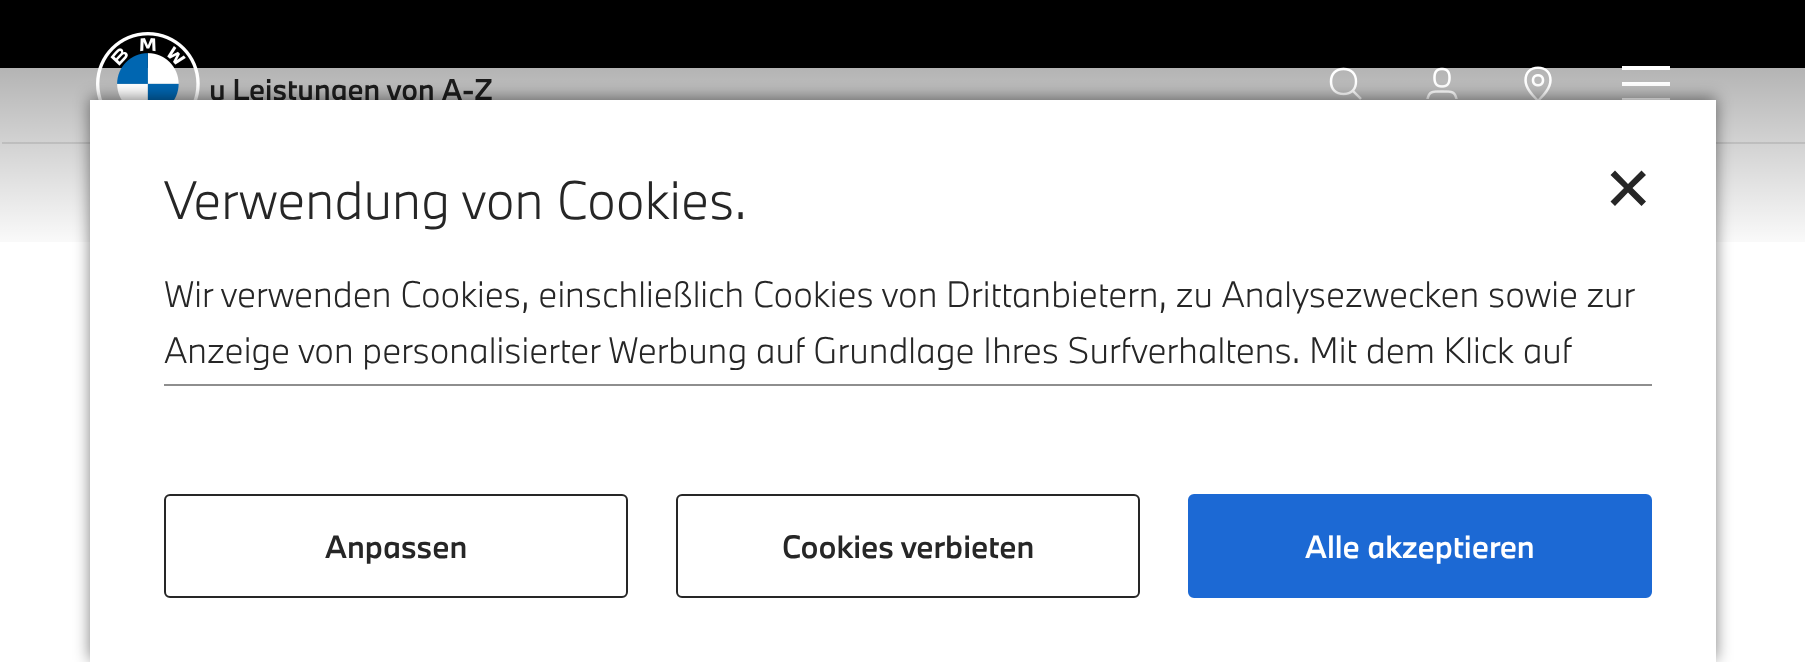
async function draw(canvas) {
  canvas.width = 1805;
  canvas.height = 662;
  const ctx = canvas.getContext('2d');
  ctx.miterLimit = 4;
  ctx.fontKerning = 'normal';
  function label(s, x, y, font, color) {
    ctx.font = font;
    ctx.fillStyle = color;
    ctx.fillText(s, x, y);
  }
  function rect(x, y, w, h, color) {
    ctx.fillStyle = color;
    ctx.fillRect(x, y, w, h);
  }
  async function image(src, x, y, w, h) {
    const img = new Image();
    img.src = src;
    await img.decode();
    ctx.drawImage(img, x, y, w, h);
  }
  let gradient, path;

  rect(0, 0, 1805, 662, '#fff');
  label('u Leistungen von A-Z', 209, 100, '500 28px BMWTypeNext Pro', '#262626');
  rect(2, 142, 1803, 2, '#e6e6e6');
  gradient = ctx.createLinearGradient(903, 256, 903, 0);
  gradient.addColorStop(0, '#00000000');
  gradient.addColorStop(1, '#00000066');
  ctx.fillStyle = gradient;
  ctx.fillRect(0, 68, 1805, 174);
  gradient = ctx.createLinearGradient(903, -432, 903, 68);
  gradient.addColorStop(0, '#00000000');
  gradient.addColorStop(0.75, '#000');
  ctx.fillStyle = gradient;
  ctx.fillRect(0, 0, 1805, 68);
  await image('assets/img1.png', 96, 32, 104, 68);
  await image('assets/img2.png', 1329, 67, 33, 33);
  await image('assets/img3.png', 1426, 67, 32, 32);
  await image('assets/img4.png', 1524, 66, 28, 34);
  ctx.fillStyle = '#fff';
  path = new Path2D('M1670 86H1622V82H1670ZM1670 70H1622V66H1670ZM1670 102H1622V98H1670Z');
  ctx.fill(path);
  ctx.fillStyle = '#00000080';
  ctx.filter = 'blur(8px)';
  ctx.beginPath();
  ctx.rect(90, 98, 1626, 562);
  ctx.fill();
  ctx.filter = 'none';
  rect(90, 100, 1626, 562, '#fff');
  label('Verwendung von Cookies.', 164, 219, '300 50px BMWTypeNext Pro', '#262626');
  path = new Path2D('M1641.5 170.5L1628 184L1615 170.5L1610.5 175L1624 188L1610.5 201.5L1615 206L1628 192.5L1641.5 206L1646 201.5L1632.5 188L1646 175Z');
  ctx.fill(path);
  label('Wir verwenden Cookies, einschließlich Cookies von Drittanbietern, zu Analysezwecken sowie zur', 164, 307, '300 34px BMWTypeNext Pro', '#262626');
  label('Anzeige von personalisierter Werbung auf Grundlage Ihres Surfverhaltens. Mit dem Klick auf', 164, 363, '300 34px BMWTypeNext Pro', '#262626');
  rect(164, 384, 1488, 2, '#8e8e8e');
  ctx.beginPath();
  ctx.roundRect(165, 495, 462, 102, 5);
  ctx.strokeStyle = '#262626';
  ctx.lineWidth = 2;
  ctx.stroke();
  label('Anpassen', 325, 558, '500 30px BMWTypeNext Pro', '#262626');
  ctx.beginPath();
  ctx.roundRect(677, 495, 462, 102, 5);
  ctx.stroke();
  label('Cookies verbieten', 782, 558, '500 30px BMWTypeNext Pro', '#262626');
  ctx.fillStyle = '#1c69d4';
  ctx.beginPath();
  ctx.roundRect(1189, 495, 462, 102, 5);
  ctx.fill();
  ctx.strokeStyle = '#1c69d4';
  ctx.stroke();
  label('Alle akzeptieren', 1305, 558, '500 30px BMWTypeNext Pro', '#fff');
}

draw(document.querySelector('canvas'));
